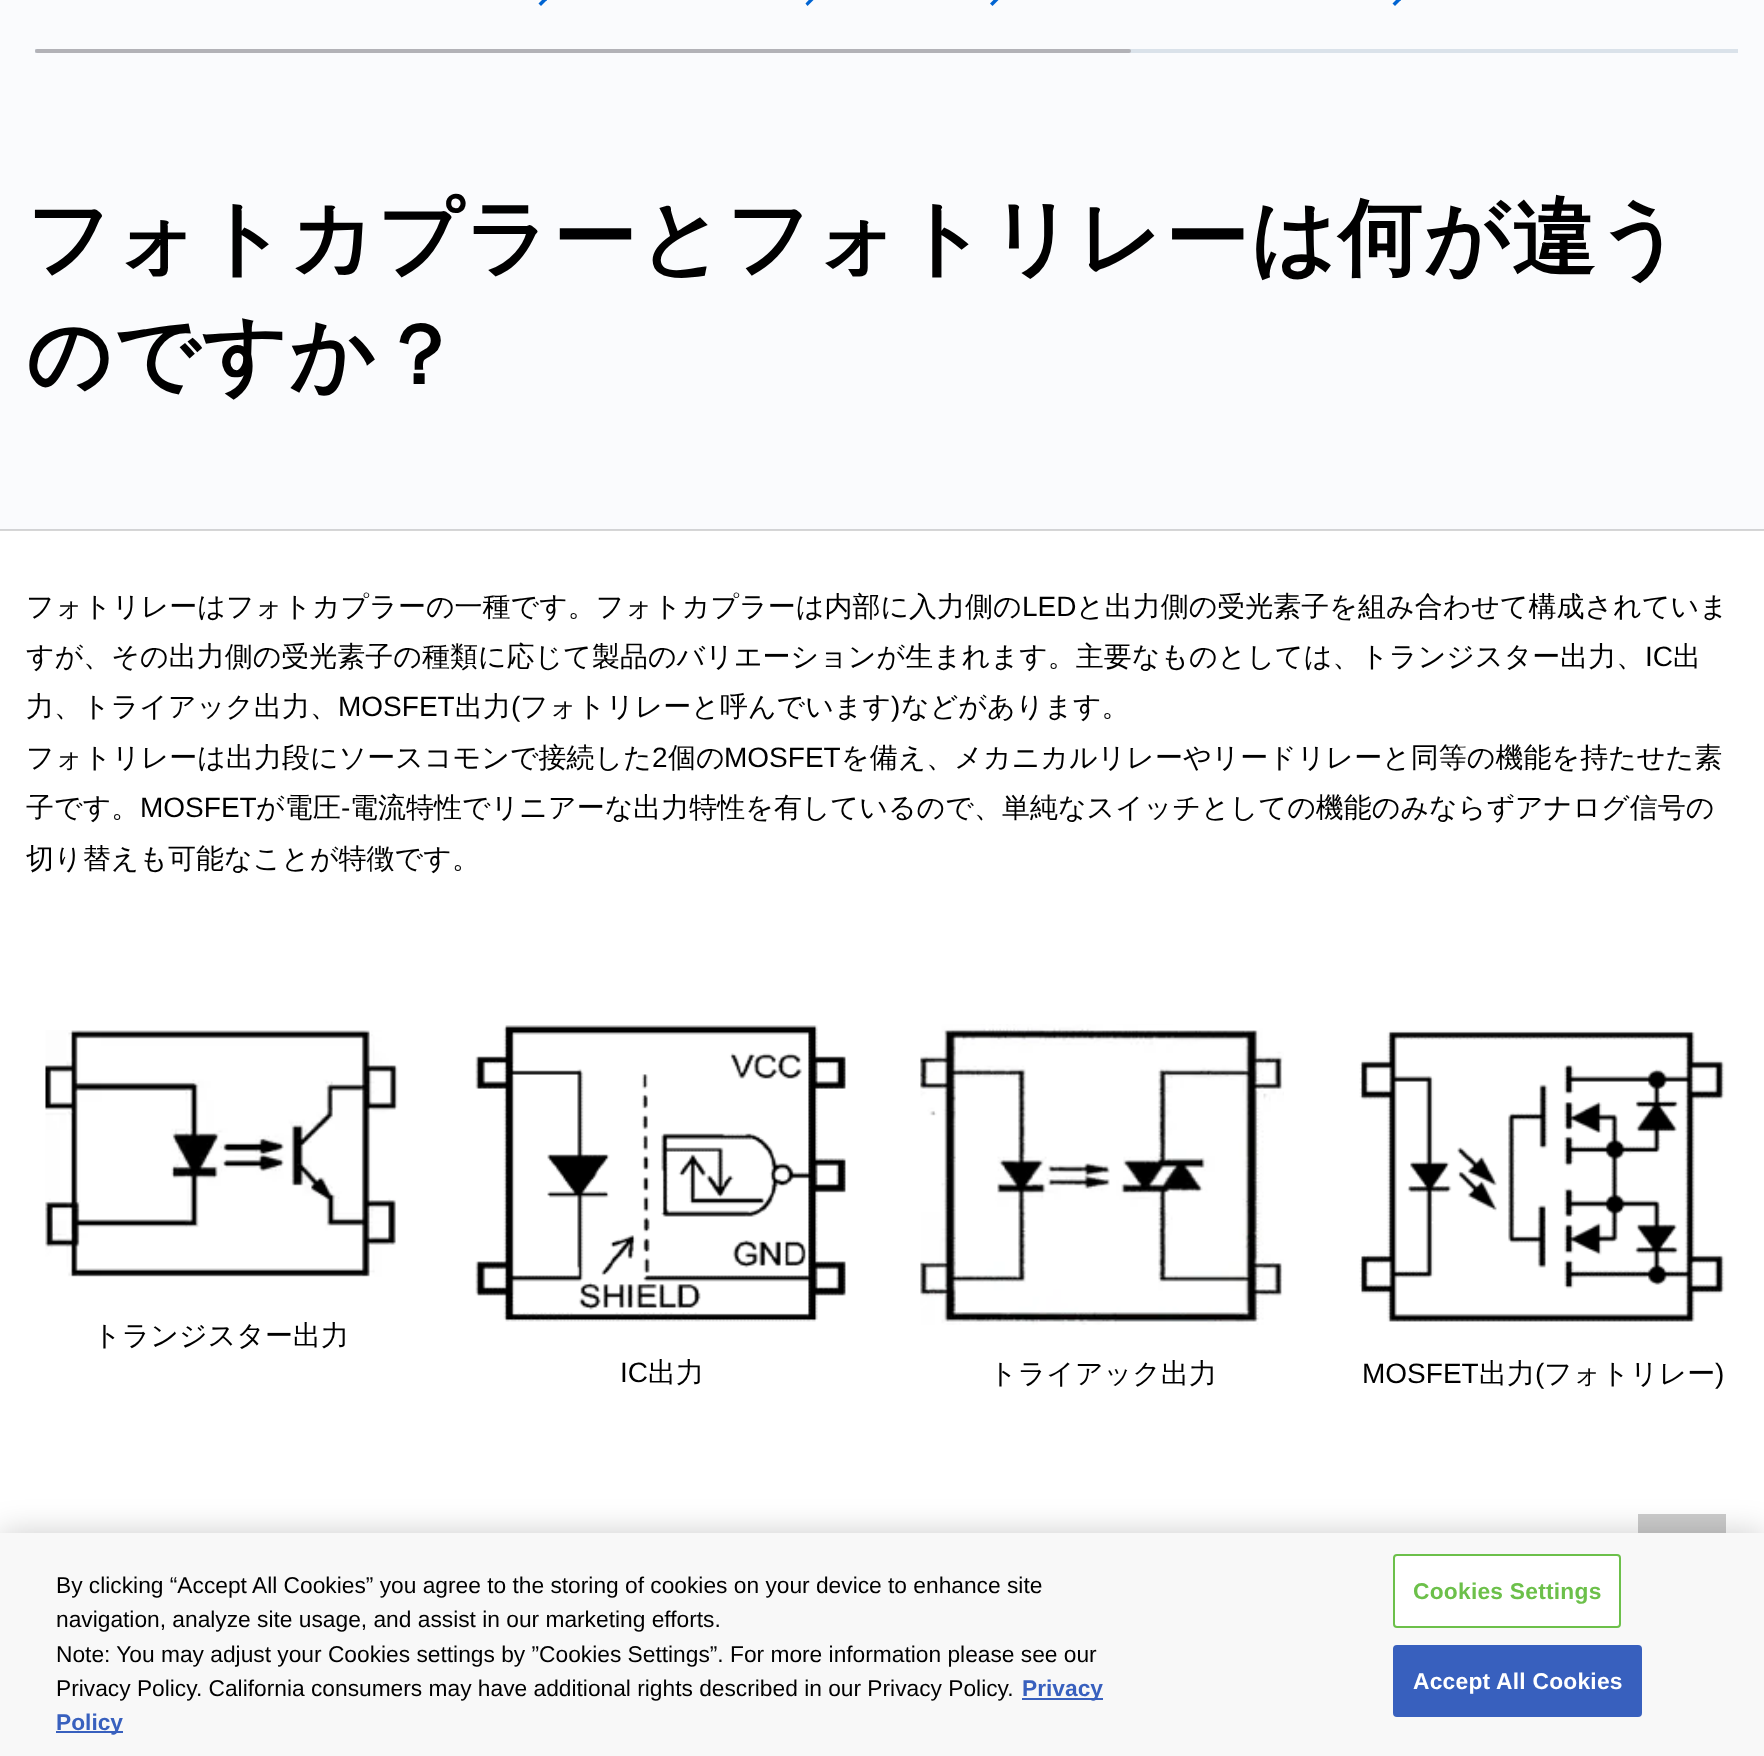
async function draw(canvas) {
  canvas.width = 1764;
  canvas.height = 1756;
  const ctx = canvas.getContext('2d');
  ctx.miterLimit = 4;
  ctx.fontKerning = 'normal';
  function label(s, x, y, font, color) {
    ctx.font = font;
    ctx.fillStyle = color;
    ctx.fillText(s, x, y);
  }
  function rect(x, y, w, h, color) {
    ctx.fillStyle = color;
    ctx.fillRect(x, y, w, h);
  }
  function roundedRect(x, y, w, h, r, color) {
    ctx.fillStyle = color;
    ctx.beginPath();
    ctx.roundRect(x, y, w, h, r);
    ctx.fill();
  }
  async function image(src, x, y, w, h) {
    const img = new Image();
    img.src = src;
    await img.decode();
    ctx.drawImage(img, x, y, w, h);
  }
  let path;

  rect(0, 0, 1764, 1756, '#fff');
  rect(0, 530, 1764, 1, '#d6d6d6');
  rect(0, 0, 1764, 529, '#fafbfd');
  rect(0, 529, 1764, 1, '#d2d3d5');
  ctx.fillStyle = '#0064d2';
  path = new Path2D('M541-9L548.5-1.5L546 1L538.5-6.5Z');
  ctx.fill(path);
  path = new Path2D('M546-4L548.5-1.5L541 6L538.5 3.5Z');
  ctx.fill(path);
  path = new Path2D('M812.5-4L815-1.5L807.5 6L805.5 3.5Z');
  ctx.fill(path);
  path = new Path2D('M997.5-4L1000-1.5L992.5 6L990 3.5Z');
  ctx.fill(path);
  path = new Path2D('M1395-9L1402.5-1.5L1400 1L1392.5-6.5Z');
  ctx.fill(path);
  path = new Path2D('M1400-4L1402.5-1.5L1395 6L1392.5 3.5Z');
  ctx.fill(path);
  rect(35, 49, 1703, 4, '#dae2ea');
  roundedRect(35, 49, 1096, 4, 2, '#b2b2b7');
  ctx.letterSpacing = '1.75px';
  label('フォトカプラーとフォトリレーは何が違う', 26, 267, 'bold 84px WenQuanYi Zen Hei', '#000');
  label('のですか？', 26, 384, 'bold 84px WenQuanYi Zen Hei', '#000');
  ctx.letterSpacing = '0px';
  label('フォトリレーはフォトカプラーの一種です。フォトカプラーは内部に入力側の', 26, 616, '500 28px WenQuanYi Zen Hei', '#000');
  label('LED', 1022, 616, '28px Liberation Sans', '#000');
  label('と出力側の受光素子を組み合わせて構成されていま', 1076, 616, '500 28px WenQuanYi Zen Hei', '#000');
  label('すが、その出力側の受光素子の種類に応じて製品のバリエーションが生まれます。主要なものとしては、トランジスター出力、', 26, 666, '500 28px WenQuanYi Zen Hei', '#000');
  label('IC', 1645, 666, '28px Liberation Sans', '#000');
  label('出', 1673, 666, '500 28px WenQuanYi Zen Hei', '#000');
  label('力、トライアック出力、', 26, 716, '500 28px WenQuanYi Zen Hei', '#000');
  label('MOSFET', 338, 716, '28px Liberation Sans', '#000');
  label('出力', 455, 716, '500 28px WenQuanYi Zen Hei', '#000');
  label('(', 511, 716, '28px Liberation Sans', '#000');
  label('フォトリレーと呼んでいます', 520, 716, '500 28px WenQuanYi Zen Hei', '#000');
  label(')', 891, 716, '28px Liberation Sans', '#000');
  label('などがあります。', 901, 716, '500 28px WenQuanYi Zen Hei', '#000');
  label('フォトリレーは出力段にソースコモンで接続した', 26, 767, '500 28px WenQuanYi Zen Hei', '#000');
  label('2', 652, 767, '28px Liberation Sans', '#000');
  label('個の', 668, 767, '500 28px WenQuanYi Zen Hei', '#000');
  label('MOSFET', 724, 767, '28px Liberation Sans', '#000');
  label('を備え、メカニカルリレーやリードリレーと同等の機能を持たせた素', 841, 767, '500 28px WenQuanYi Zen Hei', '#000');
  label('子です。', 26, 817, '500 28px WenQuanYi Zen Hei', '#000');
  label('MOSFET', 140, 817, '28px Liberation Sans', '#000');
  label('が電圧', 256, 817, '500 28px WenQuanYi Zen Hei', '#000');
  label('-', 341, 817, '28px Liberation Sans', '#000');
  label('電流特性でリニアーな出力特性を有しているので、単純なスイッチとしての機能のみならずアナログ信号の', 350, 817, '500 28px WenQuanYi Zen Hei', '#000');
  label('切り替えも可能なことが特徴です。', 26, 868, '500 28px WenQuanYi Zen Hei', '#000');
  await image('assets/img1.png', 45, 1030, 353, 247);
  label('トランジスター出力', 93, 1345, '500 28px WenQuanYi Zen Hei', '#000');
  await image('assets/img2.png', 475, 1025, 371, 297);
  label('IC', 620, 1382, '28px Liberation Sans', '#000');
  label('出力', 648, 1382, '500 28px WenQuanYi Zen Hei', '#000');
  await image('assets/img3.png', 920, 1024, 364, 301);
  label('トライアック出力', 989, 1383, '500 28px WenQuanYi Zen Hei', '#000');
  await image('assets/img4.png', 1359, 1030, 366, 292);
  label('MOSFET', 1362, 1383, '28px Liberation Sans', '#000');
  label('出力', 1479, 1383, '500 28px WenQuanYi Zen Hei', '#000');
  label('(', 1535, 1383, '28px Liberation Sans', '#000');
  label('フォトリレー', 1544, 1383, '500 28px WenQuanYi Zen Hei', '#000');
  label(')', 1715, 1383, '28px Liberation Sans', '#000');
  rect(1638, 1514, 88, 19, '#ccc');
  ctx.fillStyle = '#00000033';
  ctx.filter = 'blur(16px)';
  ctx.beginPath();
  ctx.rect(0, 1533, 1764, 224);
  ctx.fill();
  ctx.filter = 'none';
  rect(0, 1533, 1764, 223, '#f8f8f8');
  label('By clicking “Accept All Cookies” you agree to the storing of cookies on your device to enhance site', 56, 1593, '22.75px Liberation Sans', '#000');
  label('navigation, analyze site usage, and assist in our marketing efforts.', 56, 1627, '22.75px Liberation Sans', '#000');
  label('Note: You may adjust your Cookies settings by ”Cookies Settings”. For more information please see our', 56, 1662, '22.75px Liberation Sans', '#000');
  label('Privacy Policy. California consumers may have additional rights described in our Privacy Policy.', 56, 1696, '22.75px Liberation Sans', '#000');
  rect(1022, 1698, 81, 2, '#3860be');
  label('Privacy', 1022, 1696, 'bold 22.75px Liberation Sans', '#3860be');
  rect(56, 1731, 67, 2, '#3860be');
  label('Policy', 56, 1730, 'bold 22.75px Liberation Sans', '#3860be');
  ctx.fillStyle = '#fff';
  ctx.beginPath();
  ctx.roundRect(1394, 1555, 226, 72, 3);
  ctx.fill();
  ctx.strokeStyle = '#6cc04a';
  ctx.lineWidth = 2;
  ctx.stroke();
  ctx.letterSpacing = '0.25px';
  label('Cookies Settings', 1413, 1599, 'bold 22.75px Liberation Sans', '#6cc04a');
  ctx.fillStyle = '#3860be';
  ctx.beginPath();
  ctx.roundRect(1394, 1646, 247, 70, 3);
  ctx.fill();
  ctx.strokeStyle = '#3860be';
  ctx.stroke();
  label('Accept All Cookies', 1413, 1689, 'bold 22.75px Liberation Sans', '#fff');
}

draw(document.querySelector('canvas'));
